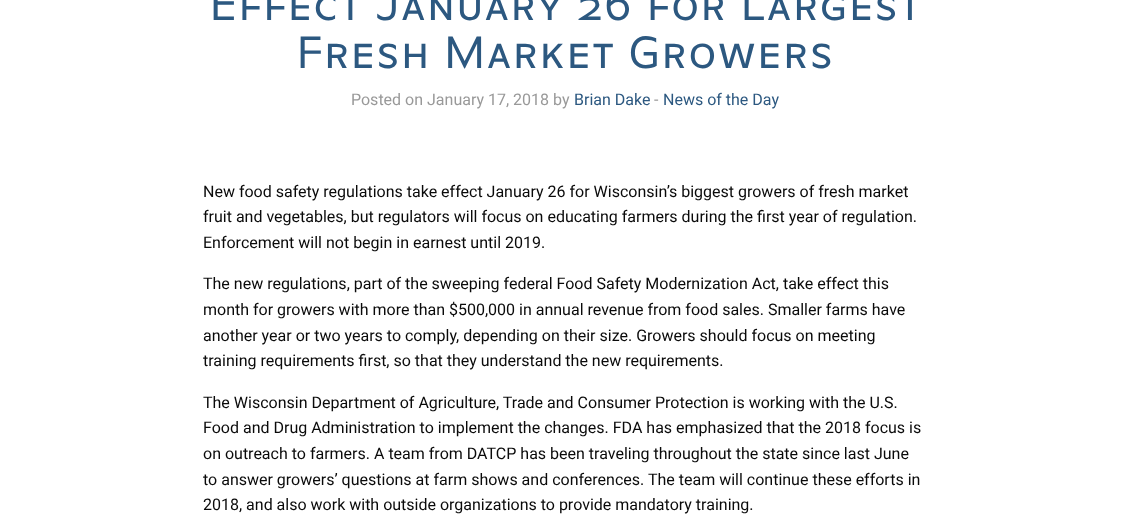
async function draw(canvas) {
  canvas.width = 1130;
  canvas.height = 522;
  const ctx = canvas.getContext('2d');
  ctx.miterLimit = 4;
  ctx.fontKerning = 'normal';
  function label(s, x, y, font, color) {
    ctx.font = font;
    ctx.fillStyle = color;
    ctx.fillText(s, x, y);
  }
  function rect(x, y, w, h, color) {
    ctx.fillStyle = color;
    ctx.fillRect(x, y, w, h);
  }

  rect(0, 0, 1130, 522, '#fff');
  label('Effect January 26 for Largest', 209, 20, '500 48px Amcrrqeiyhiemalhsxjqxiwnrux', '#2c5880');
  label('Fresh Market Growers', 296, 68, '500 48px Amcrrqeiyhiemalhsxjqxiwnrux', '#2c5880');
  label('Posted on January 17, 2018 by', 351, 105, '16px Roboto', '#999');
  label('Brian Dake', 574, 105, '16px Roboto', '#2c5880');
  label('-', 654, 105, '16px Roboto', '#999');
  label('News of the Day', 663, 105, '16px Roboto', '#2c5880');
  label('New food safety regulations take effect January 26 for Wisconsin’s biggest growers of fresh market', 203, 197, '16px Roboto', '#0a0a0a');
  label('fruit and vegetables, but regulators will focus on educating farmers during the first year of regulation.', 203, 222, '16px Roboto', '#0a0a0a');
  label('Enforcement will not begin in earnest until 2019.', 203, 248, '16px Roboto', '#0a0a0a');
  label('The new regulations, part of the sweeping federal Food Safety Modernization Act, take effect this', 203, 289, '16px Roboto', '#0a0a0a');
  label('month for growers with more than $500,000 in annual revenue from food sales. Smaller farms have', 203, 315, '16px Roboto', '#0a0a0a');
  label('another year or two years to comply, depending on their size. Growers should focus on meeting', 203, 341, '16px Roboto', '#0a0a0a');
  label('training requirements first, so that they understand the new requirements.', 203, 366, '16px Roboto', '#0a0a0a');
  label('The Wisconsin Department of Agriculture, Trade and Consumer Protection is working with the U.S.', 203, 408, '16px Roboto', '#0a0a0a');
  label('Food and Drug Administration to implement the changes. FDA has emphasized that the 2018 focus is', 203, 433, '16px Roboto', '#0a0a0a');
  label('on outreach to farmers. A team from DATCP has been traveling throughout the state since last June', 203, 459, '16px Roboto', '#0a0a0a');
  label('to answer growers’ questions at farm shows and conferences. The team will continue these efforts in', 203, 485, '16px Roboto', '#0a0a0a');
  label('2018, and also work with outside organizations to provide mandatory training.', 203, 510, '16px Roboto', '#0a0a0a');
}

draw(document.querySelector('canvas'));
